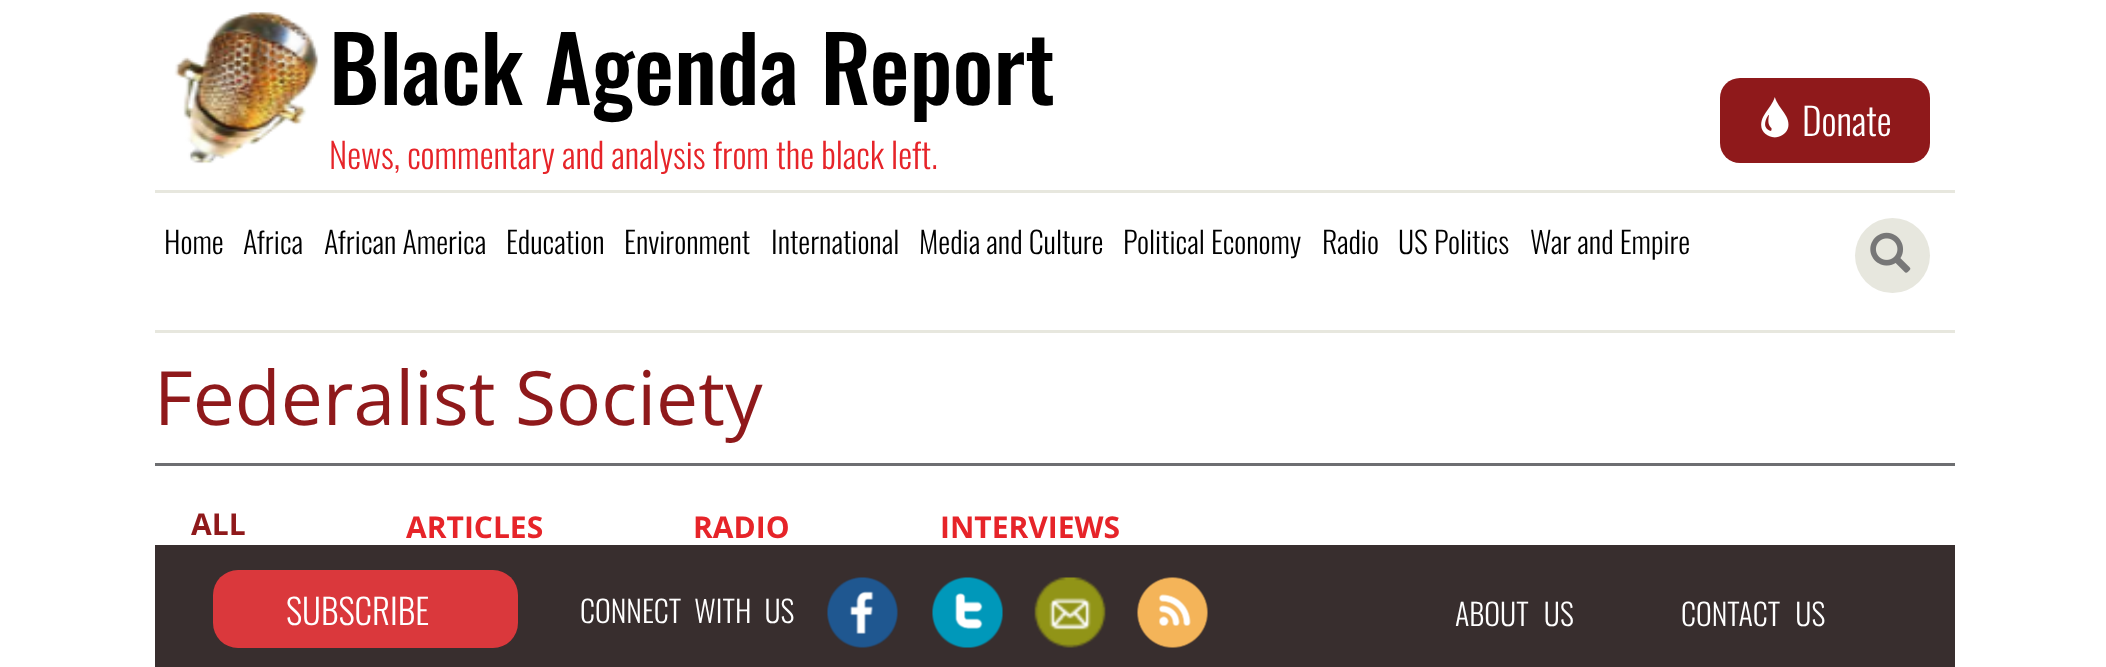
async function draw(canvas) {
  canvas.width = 2106;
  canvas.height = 667;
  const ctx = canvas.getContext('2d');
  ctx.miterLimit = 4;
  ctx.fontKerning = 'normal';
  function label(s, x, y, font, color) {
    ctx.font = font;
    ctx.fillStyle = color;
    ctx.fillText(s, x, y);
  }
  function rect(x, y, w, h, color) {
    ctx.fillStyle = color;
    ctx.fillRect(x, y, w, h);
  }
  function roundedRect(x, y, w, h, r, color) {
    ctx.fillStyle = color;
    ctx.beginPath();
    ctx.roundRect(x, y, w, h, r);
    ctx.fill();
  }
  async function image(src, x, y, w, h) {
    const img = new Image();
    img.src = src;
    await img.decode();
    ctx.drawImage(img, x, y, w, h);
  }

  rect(0, 0, 2106, 667, '#fff');
  await image('assets/img1.png', 174, 12, 145, 152);
  label('Black Agenda Report', 329, 105, '500 90px Oswald', '#000');
  label('News, commentary and analysis from the black left.', 329, 169, '300 35px Oswald', '#e62429');
  roundedRect(1720, 78, 210, 85, 20, '#8f191b');
  await image('assets/img2.png', 1761, 97, 28, 41);
  label('Donate', 1802, 136, '300 37.5px Oswald', '#fff');
  rect(155, 190, 1800, 3, '#e7e7de');
  label('Home', 164, 254, '300 30px Oswald', '#000');
  label('Africa', 243, 254, '300 30px Oswald', '#000');
  label('African America', 324, 254, '300 30px Oswald', '#000');
  label('Education', 506, 254, '300 30px Oswald', '#000');
  label('Environment', 624, 254, '300 30px Oswald', '#000');
  label('International', 771, 254, '300 30px Oswald', '#000');
  label('Media and Culture', 919, 254, '300 30px Oswald', '#000');
  label('Political Economy', 1123, 254, '300 30px Oswald', '#000');
  label('Radio', 1322, 254, '300 30px Oswald', '#000');
  label('US Politics', 1398, 254, '300 30px Oswald', '#000');
  label('War and Empire', 1530, 254, '300 30px Oswald', '#000');
  ctx.fillStyle = '#e7e7de';
  ctx.beginPath();
  ctx.arc(1892.5, 255.5, 37.5, 0, 2 * Math.PI);
  ctx.fill();
  await image('assets/img3.png', 1870, 232, 41, 41);
  rect(155, 330, 1800, 3, '#e7e7de');
  rect(155, 463, 1800, 3, '#6d6e71');
  label('Federalist Society', 154, 425, '75px Open Sans', '#8f191b');
  label('ALL', 191, 535, 'bold 30px Open Sans', '#8f191b');
  label('ARTICLES', 406, 538, 'bold 30px Open Sans', '#e62429');
  label('RADIO', 693, 538, 'bold 30px Open Sans', '#e62429');
  label('INTERVIEWS', 940, 538, 'bold 30px Open Sans', '#e62429');
  rect(155, 545, 1800, 122, '#382e2e');
  roundedRect(213, 570, 305, 78, 25, '#da383c');
  label('SUBSCRIBE', 286, 625, '300 35px Oswald', '#fff');
  ctx.wordSpacing = '7px';
  label('CONNECT WITH US', 580, 623, '300 30px Oswald', '#fff');
  await image('assets/img4.png', 827, 577, 71, 71);
  await image('assets/img5.png', 932, 577, 71, 71);
  await image('assets/img6.png', 1034, 577, 72, 71);
  await image('assets/img7.png', 1137, 577, 71, 71);
  ctx.wordSpacing = '9px';
  label('ABOUT US', 1455, 626, '300 30px Oswald', '#fff');
  label('CONTACT US', 1681, 626, '300 30px Oswald', '#fff');
}

draw(document.querySelector('canvas'));
